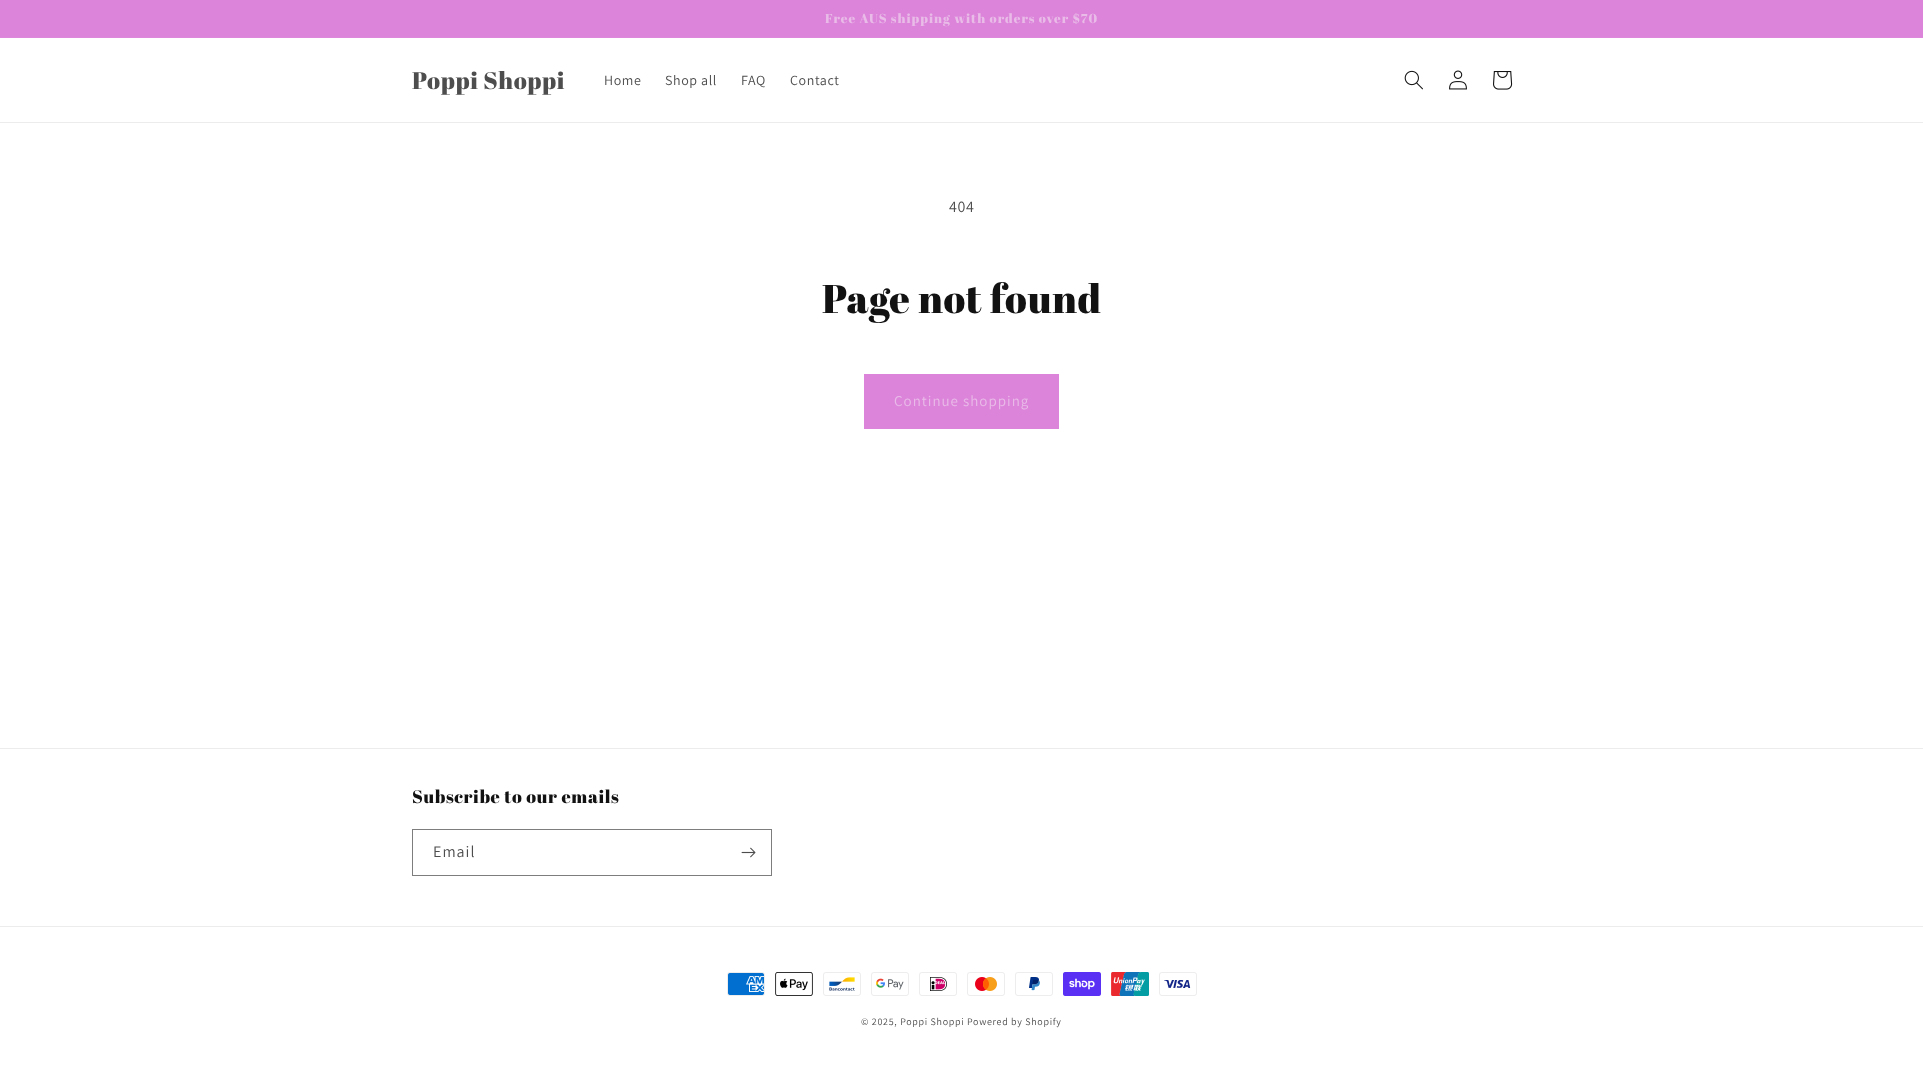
async function draw(canvas) {
  canvas.width = 1923;
  canvas.height = 1067;
  const ctx = canvas.getContext('2d');
  ctx.miterLimit = 4;
  ctx.fontKerning = 'normal';
  function label(s, x, y, font, color) {
    ctx.font = font;
    ctx.fillStyle = color;
    ctx.fillText(s, x, y);
  }
  function rect(x, y, w, h, color) {
    ctx.fillStyle = color;
    ctx.fillRect(x, y, w, h);
  }
  async function image(src, x, y, w, h) {
    const img = new Image();
    img.src = src;
    await img.decode();
    ctx.drawImage(img, x, y, w, h);
  }

  rect(0, 0, 1923, 1067, '#fff');
  rect(0, 0, 1923, 37, '#dc84da');
  rect(0, 37, 1923, 1, '#dd88db');
  ctx.letterSpacing = '1px';
  label('Free AUS shipping with orders over $70', 825, 23, '13px Abril Fatface', '#e9bce8');
  rect(0, 122, 1923, 1, '#ececec');
  ctx.letterSpacing = '0.6px';
  label('Poppi Shoppi', 412, 89, '24px Abril Fatface', '#4d4d4d');
  label('Home', 604, 85, '14px Assistant', '#4d4d4d');
  label('Shop all', 665, 85, '14px Assistant', '#4d4d4d');
  label('FAQ', 741, 85, '14px Assistant', '#4d4d4d');
  label('Contact', 790, 85, '14px Assistant', '#4d4d4d');
  await image('assets/img1.png', 1404, 70, 19, 20);
  await image('assets/img2.png', 1449, 70, 18, 20);
  await image('assets/img3.png', 1493, 71, 20, 19);
  label('404', 949, 212, '16px Assistant', '#4d4d4d');
  label('Page not found', 822, 313, '40px Abril Fatface', '#121212');
  rect(864, 374, 195, 55, '#dc84da');
  ctx.letterSpacing = '1px';
  label('Continue shopping', 894, 406, '15px Assistant', '#e9bce8');
  rect(0, 748, 1923, 1, '#ececec');
  ctx.letterSpacing = '0.6px';
  label('Subscribe to our emails', 412, 803, '18px Abril Fatface', '#121212');
  ctx.strokeStyle = '#7d7d7d';
  ctx.strokeRect(412.5, 829.5, 359, 46);
  ctx.letterSpacing = '1px';
  label('Email', 433, 857, '16px Assistant', '#4d4d4d');
  await image('assets/img4.png', 741, 847, 15, 11);
  rect(0, 926, 1923, 1, '#ececec');
  await image('assets/img5.png', 727, 972, 38, 24);
  await image('assets/img6.png', 775, 972, 38, 24);
  await image('assets/img7.png', 823, 972, 38, 24);
  await image('assets/img8.png', 871, 972, 38, 24);
  await image('assets/img9.png', 919, 972, 38, 24);
  await image('assets/img10.png', 967, 972, 38, 24);
  await image('assets/img11.png', 1015, 972, 38, 24);
  await image('assets/img12.png', 1063, 972, 38, 24);
  await image('assets/img13.png', 1111, 972, 38, 24);
  await image('assets/img14.png', 1159, 972, 38, 24);
  ctx.letterSpacing = '0.7px';
  label('© 2025, Poppi Shoppi', 861, 1025, '10px Assistant', '#4d4d4d');
  label('Powered by Shopify', 967, 1025, '10px Assistant', '#4d4d4d');
}

draw(document.querySelector('canvas'));
